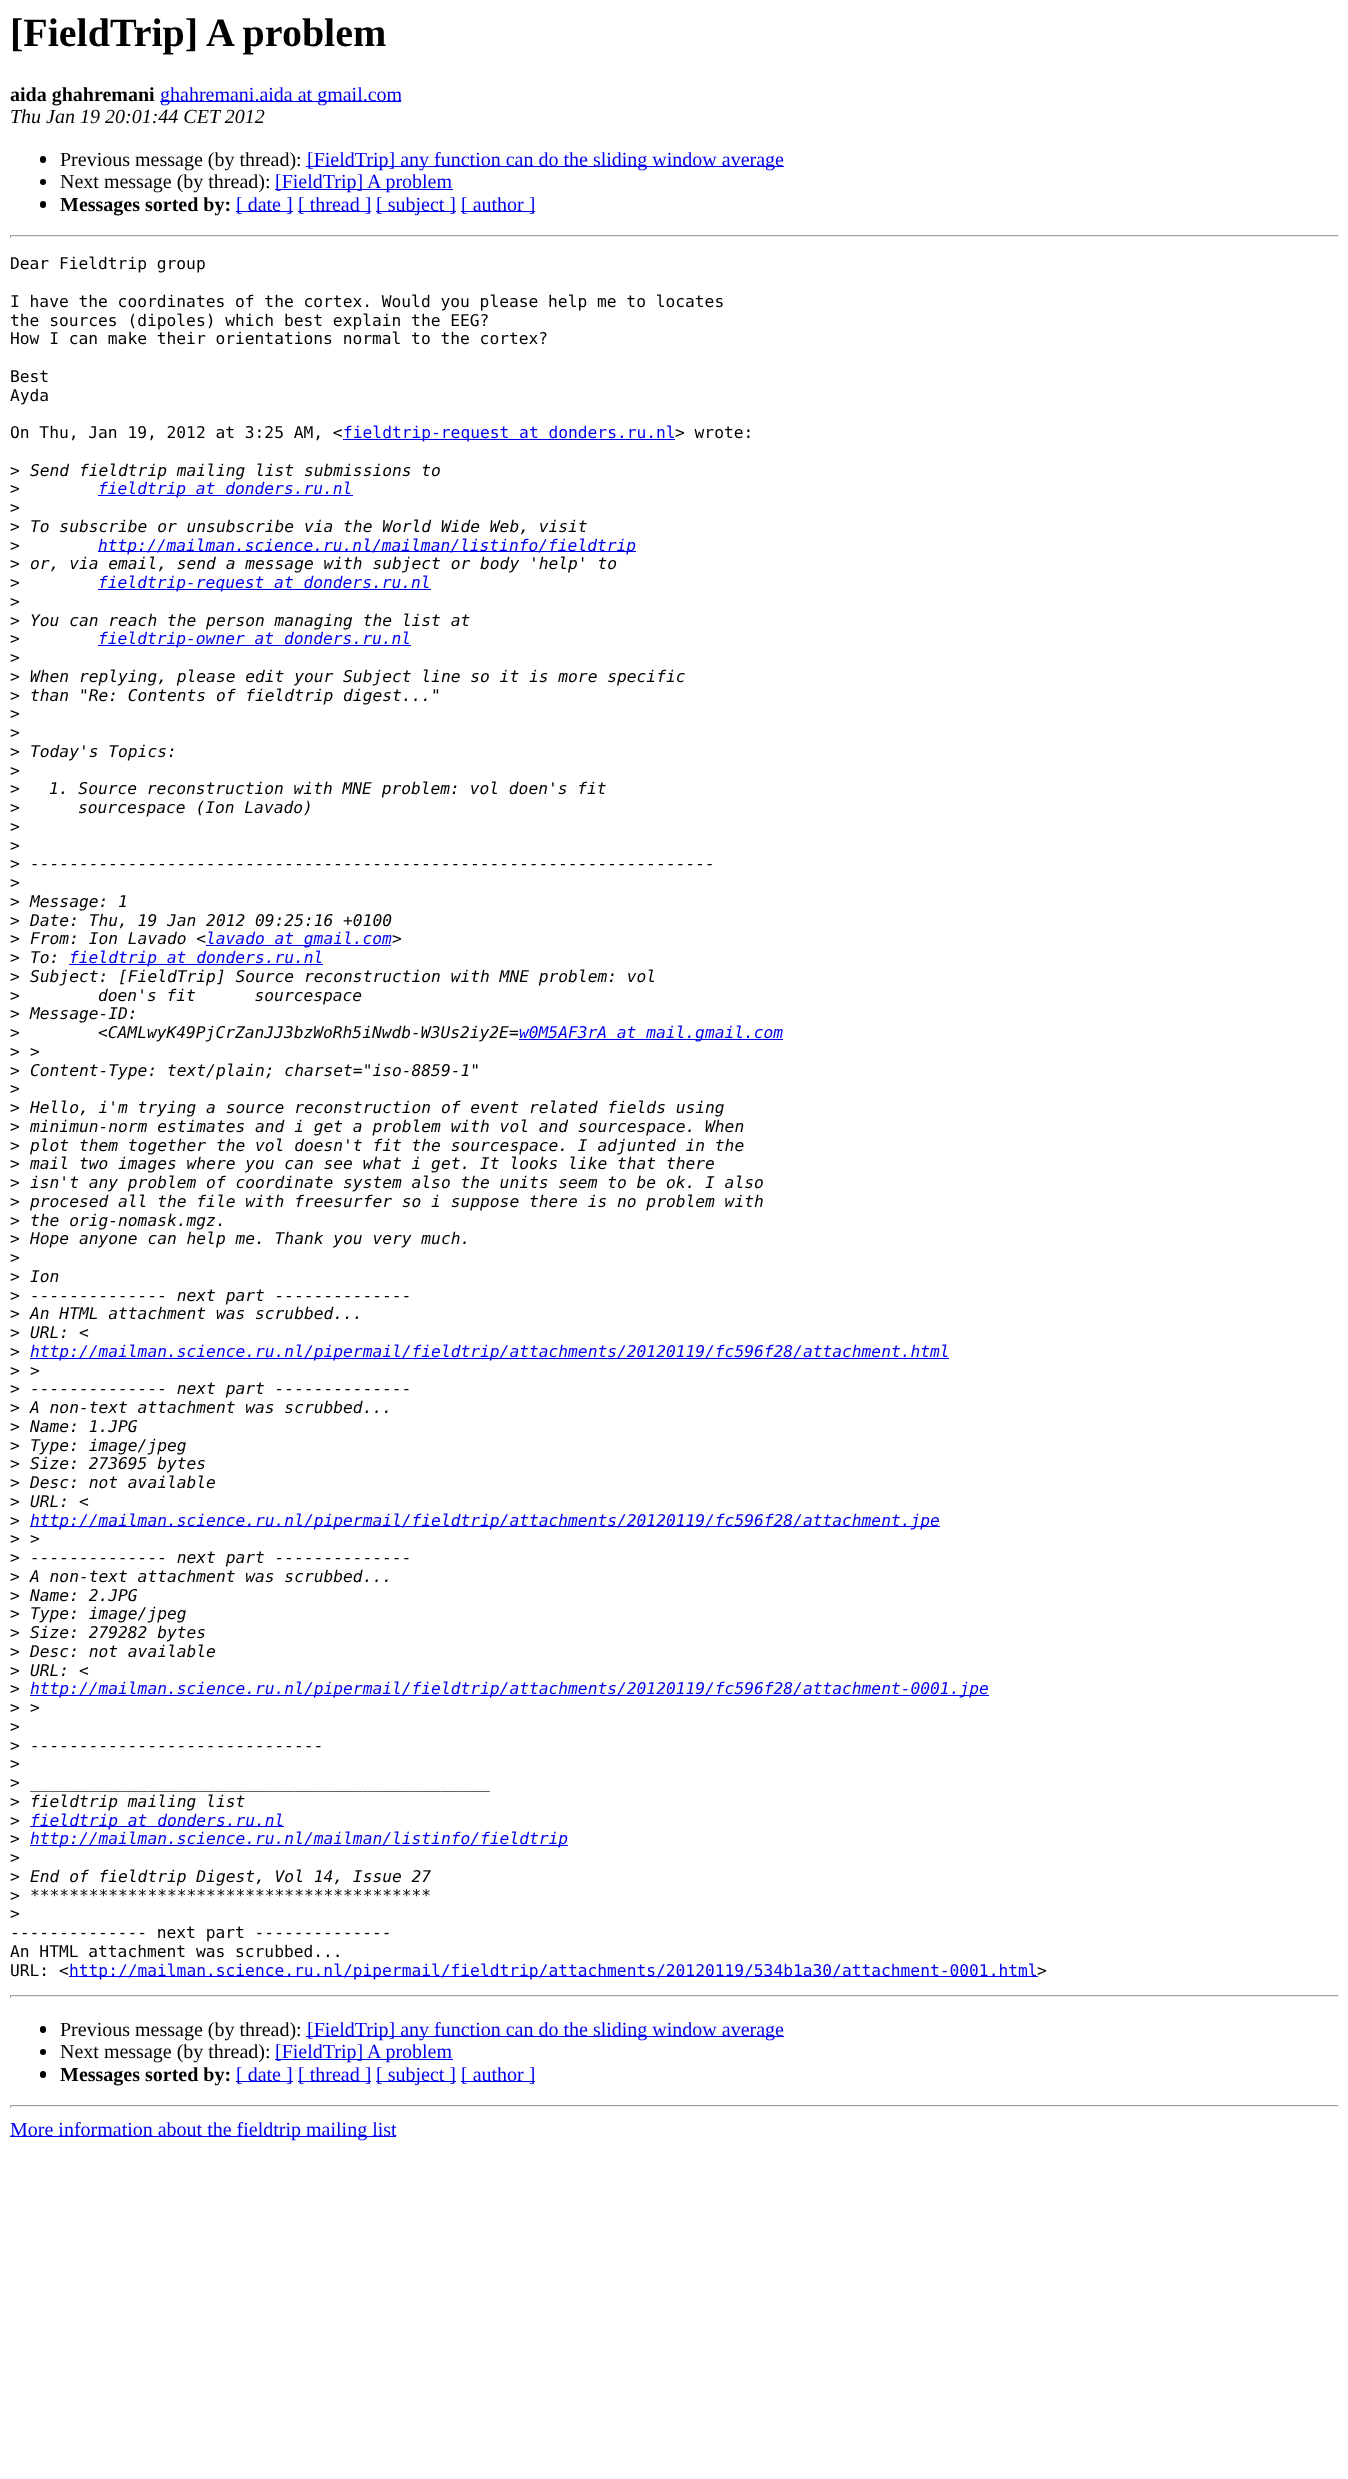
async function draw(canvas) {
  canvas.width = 1348;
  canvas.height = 2479;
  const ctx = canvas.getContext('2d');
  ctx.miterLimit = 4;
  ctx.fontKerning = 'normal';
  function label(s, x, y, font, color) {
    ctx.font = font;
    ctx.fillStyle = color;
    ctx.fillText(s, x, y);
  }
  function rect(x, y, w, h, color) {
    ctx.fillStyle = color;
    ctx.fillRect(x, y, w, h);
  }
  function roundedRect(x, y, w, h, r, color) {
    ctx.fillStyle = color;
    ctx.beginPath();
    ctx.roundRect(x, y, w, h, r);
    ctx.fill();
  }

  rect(0, 0, 1348, 2479, '#fff');
  label('[FieldTrip] A problem', 10, 46, 'bold 40px Liberation Serif', '#000');
  label('aida ghahremani', 10, 101, 'bold 20px Liberation Serif', '#000');
  rect(160, 101, 241, 1, '#00e');
  label('ghahremani.aida at gmail.com', 160, 101, '20px Liberation Serif', '#00e');
  label('Thu Jan 19 20:01:44 CET 2012', 10, 123, 'italic 20px Liberation Serif', '#000');
  roundedRect(40, 156, 6, 7, 3, '#000');
  label('Previous message (by thread):', 60, 166, '20px Liberation Serif', '#000');
  rect(306, 166, 478, 1, '#00e');
  label('[FieldTrip] any function can do the sliding window average', 307, 166, '20px Liberation Serif', '#00e');
  ctx.fillStyle = '#000';
  ctx.beginPath();
  ctx.arc(43, 182, 3, 0, 2 * Math.PI);
  ctx.fill();
  label('Next message (by thread):', 60, 188, '20px Liberation Serif', '#000');
  rect(275, 189, 178, 1, '#00e');
  label('[FieldTrip] A problem', 275, 188, '20px Liberation Serif', '#00e');
  roundedRect(40, 201, 6, 7, 3, '#000');
  label('Messages sorted by:', 60, 211, 'bold 20px Liberation Serif', '#000');
  rect(236, 211, 57, 1, '#00e');
  label('[ date ]', 236, 211, '20px Liberation Serif', '#00e');
  rect(298, 211, 73, 1, '#00e');
  label('[ thread ]', 298, 211, '20px Liberation Serif', '#00e');
  rect(376, 211, 80, 1, '#00e');
  label('[ subject ]', 376, 211, '20px Liberation Serif', '#00e');
  rect(461, 211, 74, 1, '#00e');
  label('[ author ]', 461, 211, '20px Liberation Serif', '#00e');
  rect(10, 235, 1329, 1, '#9f9f9f');
  rect(1338, 235, 1, 3, '#eee');
  rect(10, 236, 1329, 1, '#eee');
  rect(10, 235, 1, 3, '#9f9f9f');
  label('Dear Fieldtrip group', 10, 269, '16.25px DejaVu Sans Mono', '#000');
  label('I have the coordinates of the cortex. Would you please help me to locates', 10, 307, '16.25px DejaVu Sans Mono', '#000');
  label('the sources (dipoles) which best explain the EEG?', 10, 326, '16.25px DejaVu Sans Mono', '#000');
  label('How I can make their orientations normal to the cortex?', 10, 344, '16.25px DejaVu Sans Mono', '#000');
  label('Best', 10, 382, '16.25px DejaVu Sans Mono', '#000');
  label('Ayda', 10, 401, '16.25px DejaVu Sans Mono', '#000');
  label('On Thu, Jan 19, 2012 at 3:25 AM, <', 10, 438, '16.25px DejaVu Sans Mono', '#000');
  rect(343, 439, 332, 1, '#00e');
  label('fieldtrip-request at donders.ru.nl', 343, 438, '16.25px DejaVu Sans Mono', '#00e');
  label('> wrote:', 675, 438, '16.25px DejaVu Sans Mono', '#000');
  label('>', 10, 476, '16.25px DejaVu Sans Mono', '#000');
  label('Send fieldtrip mailing list submissions to', 30, 476, 'italic 16.25px DejaVu Sans Mono', '#000');
  label('>', 10, 494, '16.25px DejaVu Sans Mono', '#000');
  rect(98, 495, 255, 1, '#00e');
  label('fieldtrip at donders.ru.nl', 98, 494, 'italic 16.25px DejaVu Sans Mono', '#00e');
  label('>', 10, 513, '16.25px DejaVu Sans Mono', '#000');
  label('>', 10, 532, '16.25px DejaVu Sans Mono', '#000');
  label('To subscribe or unsubscribe via the World Wide Web, visit', 30, 532, 'italic 16.25px DejaVu Sans Mono', '#000');
  label('>', 10, 551, '16.25px DejaVu Sans Mono', '#000');
  rect(98, 551, 538, 1, '#00e');
  label('http://mailman.science.ru.nl/mailman/listinfo/fieldtrip', 98, 551, 'italic 16.25px DejaVu Sans Mono', '#00e');
  label('>', 10, 569, '16.25px DejaVu Sans Mono', '#000');
  label('or, via email, send a message with subject or body \'help\' to', 30, 569, 'italic 16.25px DejaVu Sans Mono', '#000');
  label('>', 10, 588, '16.25px DejaVu Sans Mono', '#000');
  rect(98, 589, 333, 1, '#00e');
  label('fieldtrip-request at donders.ru.nl', 98, 588, 'italic 16.25px DejaVu Sans Mono', '#00e');
  label('>', 10, 607, '16.25px DejaVu Sans Mono', '#000');
  label('>', 10, 626, '16.25px DejaVu Sans Mono', '#000');
  label('You can reach the person managing the list at', 30, 626, 'italic 16.25px DejaVu Sans Mono', '#000');
  label('>', 10, 644, '16.25px DejaVu Sans Mono', '#000');
  rect(98, 645, 313, 1, '#00e');
  label('fieldtrip-owner at donders.ru.nl', 98, 644, 'italic 16.25px DejaVu Sans Mono', '#00e');
  label('>', 10, 663, '16.25px DejaVu Sans Mono', '#000');
  label('>', 10, 682, '16.25px DejaVu Sans Mono', '#000');
  label('When replying, please edit your Subject line so it is more specific', 30, 682, 'italic 16.25px DejaVu Sans Mono', '#000');
  label('>', 10, 701, '16.25px DejaVu Sans Mono', '#000');
  label('than "Re: Contents of fieldtrip digest..."', 30, 701, 'italic 16.25px DejaVu Sans Mono', '#000');
  label('>', 10, 719, '16.25px DejaVu Sans Mono', '#000');
  label('>', 10, 738, '16.25px DejaVu Sans Mono', '#000');
  label('>', 10, 757, '16.25px DejaVu Sans Mono', '#000');
  label('Today\'s Topics:', 30, 757, 'italic 16.25px DejaVu Sans Mono', '#000');
  label('>', 10, 776, '16.25px DejaVu Sans Mono', '#000');
  label('>', 10, 794, '16.25px DejaVu Sans Mono', '#000');
  label('1. Source reconstruction with MNE problem: vol doen\'s fit', 49, 794, 'italic 16.25px DejaVu Sans Mono', '#000');
  label('>', 10, 813, '16.25px DejaVu Sans Mono', '#000');
  label('sourcespace (Ion Lavado)', 78, 813, 'italic 16.25px DejaVu Sans Mono', '#000');
  label('>', 10, 832, '16.25px DejaVu Sans Mono', '#000');
  label('>', 10, 851, '16.25px DejaVu Sans Mono', '#000');
  label('>', 10, 869, '16.25px DejaVu Sans Mono', '#000');
  label('----------------------------------------------------------------------', 30, 869, 'italic 16.25px DejaVu Sans Mono', '#000');
  label('>', 10, 888, '16.25px DejaVu Sans Mono', '#000');
  label('>', 10, 907, '16.25px DejaVu Sans Mono', '#000');
  label('Message: 1', 30, 907, 'italic 16.25px DejaVu Sans Mono', '#000');
  label('>', 10, 926, '16.25px DejaVu Sans Mono', '#000');
  label('Date: Thu, 19 Jan 2012 09:25:16 +0100', 30, 926, 'italic 16.25px DejaVu Sans Mono', '#000');
  label('>', 10, 944, '16.25px DejaVu Sans Mono', '#000');
  label('From: Ion Lavado <', 30, 944, 'italic 16.25px DejaVu Sans Mono', '#000');
  rect(206, 945, 185, 1, '#00e');
  label('lavado at gmail.com', 206, 944, 'italic 16.25px DejaVu Sans Mono', '#00e');
  label('>', 392, 944, 'italic 16.25px DejaVu Sans Mono', '#000');
  label('>', 10, 963, '16.25px DejaVu Sans Mono', '#000');
  label('To:', 30, 963, 'italic 16.25px DejaVu Sans Mono', '#000');
  rect(69, 964, 254, 1, '#00e');
  label('fieldtrip at donders.ru.nl', 69, 963, 'italic 16.25px DejaVu Sans Mono', '#00e');
  label('>', 10, 982, '16.25px DejaVu Sans Mono', '#000');
  label('Subject: [FieldTrip] Source reconstruction with MNE problem: vol', 30, 982, 'italic 16.25px DejaVu Sans Mono', '#000');
  label('>', 10, 1001, '16.25px DejaVu Sans Mono', '#000');
  label('doen\'s fit      sourcespace', 98, 1001, 'italic 16.25px DejaVu Sans Mono', '#000');
  label('>', 10, 1019, '16.25px DejaVu Sans Mono', '#000');
  label('Message-ID:', 30, 1019, 'italic 16.25px DejaVu Sans Mono', '#000');
  label('>', 10, 1038, '16.25px DejaVu Sans Mono', '#000');
  label('<CAMLwyK49PjCrZanJJ3bzWoRh5iNwdb-W3Us2iy2E=', 98, 1038, 'italic 16.25px DejaVu Sans Mono', '#000');
  rect(519, 1039, 264, 1, '#00e');
  label('w0M5AF3rA at mail.gmail.com', 519, 1038, 'italic 16.25px DejaVu Sans Mono', '#00e');
  label('>', 10, 1057, '16.25px DejaVu Sans Mono', '#000');
  label('>', 30, 1057, 'italic 16.25px DejaVu Sans Mono', '#000');
  label('>', 10, 1076, '16.25px DejaVu Sans Mono', '#000');
  label('Content-Type: text/plain; charset="iso-8859-1"', 30, 1076, 'italic 16.25px DejaVu Sans Mono', '#000');
  label('>', 10, 1094, '16.25px DejaVu Sans Mono', '#000');
  label('>', 10, 1113, '16.25px DejaVu Sans Mono', '#000');
  label('Hello, i\'m trying a source reconstruction of event related fields using', 30, 1113, 'italic 16.25px DejaVu Sans Mono', '#000');
  label('>', 10, 1132, '16.25px DejaVu Sans Mono', '#000');
  label('minimun-norm estimates and i get a problem with vol and sourcespace. When', 30, 1132, 'italic 16.25px DejaVu Sans Mono', '#000');
  label('>', 10, 1151, '16.25px DejaVu Sans Mono', '#000');
  label('plot them together the vol doesn\'t fit the sourcespace. I adjunted in the', 30, 1151, 'italic 16.25px DejaVu Sans Mono', '#000');
  label('>', 10, 1169, '16.25px DejaVu Sans Mono', '#000');
  label('mail two images where you can see what i get. It looks like that there', 30, 1169, 'italic 16.25px DejaVu Sans Mono', '#000');
  label('>', 10, 1188, '16.25px DejaVu Sans Mono', '#000');
  label('isn\'t any problem of coordinate system also the units seem to be ok. I also', 30, 1188, 'italic 16.25px DejaVu Sans Mono', '#000');
  label('>', 10, 1207, '16.25px DejaVu Sans Mono', '#000');
  label('procesed all the file with freesurfer so i suppose there is no problem with', 30, 1207, 'italic 16.25px DejaVu Sans Mono', '#000');
  label('>', 10, 1226, '16.25px DejaVu Sans Mono', '#000');
  label('the orig-nomask.mgz.', 30, 1226, 'italic 16.25px DejaVu Sans Mono', '#000');
  label('>', 10, 1244, '16.25px DejaVu Sans Mono', '#000');
  label('Hope anyone can help me. Thank you very much.', 30, 1244, 'italic 16.25px DejaVu Sans Mono', '#000');
  label('>', 10, 1263, '16.25px DejaVu Sans Mono', '#000');
  label('>', 10, 1282, '16.25px DejaVu Sans Mono', '#000');
  label('Ion', 30, 1282, 'italic 16.25px DejaVu Sans Mono', '#000');
  label('>', 10, 1301, '16.25px DejaVu Sans Mono', '#000');
  label('-------------- next part --------------', 30, 1301, 'italic 16.25px DejaVu Sans Mono', '#000');
  label('>', 10, 1319, '16.25px DejaVu Sans Mono', '#000');
  label('An HTML attachment was scrubbed...', 30, 1319, 'italic 16.25px DejaVu Sans Mono', '#000');
  label('>', 10, 1338, '16.25px DejaVu Sans Mono', '#000');
  label('URL: <', 30, 1338, 'italic 16.25px DejaVu Sans Mono', '#000');
  label('>', 10, 1357, '16.25px DejaVu Sans Mono', '#000');
  rect(30, 1358, 919, 1, '#00e');
  label('http://mailman.science.ru.nl/pipermail/fieldtrip/attachments/20120119/fc596f28/attachment.html', 30, 1357, 'italic 16.25px DejaVu Sans Mono', '#00e');
  label('>', 10, 1376, '16.25px DejaVu Sans Mono', '#000');
  label('>', 30, 1376, 'italic 16.25px DejaVu Sans Mono', '#000');
  label('>', 10, 1394, '16.25px DejaVu Sans Mono', '#000');
  label('-------------- next part --------------', 30, 1394, 'italic 16.25px DejaVu Sans Mono', '#000');
  label('>', 10, 1413, '16.25px DejaVu Sans Mono', '#000');
  label('A non-text attachment was scrubbed...', 30, 1413, 'italic 16.25px DejaVu Sans Mono', '#000');
  label('>', 10, 1432, '16.25px DejaVu Sans Mono', '#000');
  label('Name: 1.JPG', 30, 1432, 'italic 16.25px DejaVu Sans Mono', '#000');
  label('>', 10, 1451, '16.25px DejaVu Sans Mono', '#000');
  label('Type: image/jpeg', 30, 1451, 'italic 16.25px DejaVu Sans Mono', '#000');
  label('>', 10, 1469, '16.25px DejaVu Sans Mono', '#000');
  label('Size: 273695 bytes', 30, 1469, 'italic 16.25px DejaVu Sans Mono', '#000');
  label('>', 10, 1488, '16.25px DejaVu Sans Mono', '#000');
  label('Desc: not available', 30, 1488, 'italic 16.25px DejaVu Sans Mono', '#000');
  label('>', 10, 1507, '16.25px DejaVu Sans Mono', '#000');
  label('URL: <', 30, 1507, 'italic 16.25px DejaVu Sans Mono', '#000');
  label('>', 10, 1526, '16.25px DejaVu Sans Mono', '#000');
  rect(30, 1526, 910, 1, '#00e');
  label('http://mailman.science.ru.nl/pipermail/fieldtrip/attachments/20120119/fc596f28/attachment.jpe', 30, 1526, 'italic 16.25px DejaVu Sans Mono', '#00e');
  label('>', 10, 1544, '16.25px DejaVu Sans Mono', '#000');
  label('>', 30, 1544, 'italic 16.25px DejaVu Sans Mono', '#000');
  label('>', 10, 1563, '16.25px DejaVu Sans Mono', '#000');
  label('-------------- next part --------------', 30, 1563, 'italic 16.25px DejaVu Sans Mono', '#000');
  label('>', 10, 1582, '16.25px DejaVu Sans Mono', '#000');
  label('A non-text attachment was scrubbed...', 30, 1582, 'italic 16.25px DejaVu Sans Mono', '#000');
  label('>', 10, 1601, '16.25px DejaVu Sans Mono', '#000');
  label('Name: 2.JPG', 30, 1601, 'italic 16.25px DejaVu Sans Mono', '#000');
  label('>', 10, 1619, '16.25px DejaVu Sans Mono', '#000');
  label('Type: image/jpeg', 30, 1619, 'italic 16.25px DejaVu Sans Mono', '#000');
  label('>', 10, 1638, '16.25px DejaVu Sans Mono', '#000');
  label('Size: 279282 bytes', 30, 1638, 'italic 16.25px DejaVu Sans Mono', '#000');
  label('>', 10, 1657, '16.25px DejaVu Sans Mono', '#000');
  label('Desc: not available', 30, 1657, 'italic 16.25px DejaVu Sans Mono', '#000');
  label('>', 10, 1676, '16.25px DejaVu Sans Mono', '#000');
  label('URL: <', 30, 1676, 'italic 16.25px DejaVu Sans Mono', '#000');
  label('>', 10, 1694, '16.25px DejaVu Sans Mono', '#000');
  rect(30, 1695, 959, 1, '#00e');
  label('http://mailman.science.ru.nl/pipermail/fieldtrip/attachments/20120119/fc596f28/attachment-0001.jpe', 30, 1694, 'italic 16.25px DejaVu Sans Mono', '#00e');
  label('>', 10, 1713, '16.25px DejaVu Sans Mono', '#000');
  label('>', 30, 1713, 'italic 16.25px DejaVu Sans Mono', '#000');
  label('>', 10, 1732, '16.25px DejaVu Sans Mono', '#000');
  label('>', 10, 1751, '16.25px DejaVu Sans Mono', '#000');
  label('------------------------------', 30, 1751, 'italic 16.25px DejaVu Sans Mono', '#000');
  label('>', 10, 1769, '16.25px DejaVu Sans Mono', '#000');
  label('>', 10, 1788, '16.25px DejaVu Sans Mono', '#000');
  label('_______________________________________________', 30, 1788, 'italic 16.25px DejaVu Sans Mono', '#000');
  label('>', 10, 1807, '16.25px DejaVu Sans Mono', '#000');
  label('fieldtrip mailing list', 30, 1807, 'italic 16.25px DejaVu Sans Mono', '#000');
  label('>', 10, 1826, '16.25px DejaVu Sans Mono', '#000');
  rect(30, 1826, 254, 1, '#00e');
  label('fieldtrip at donders.ru.nl', 30, 1826, 'italic 16.25px DejaVu Sans Mono', '#00e');
  label('>', 10, 1844, '16.25px DejaVu Sans Mono', '#000');
  rect(30, 1845, 538, 1, '#00e');
  label('http://mailman.science.ru.nl/mailman/listinfo/fieldtrip', 30, 1844, 'italic 16.25px DejaVu Sans Mono', '#00e');
  label('>', 10, 1863, '16.25px DejaVu Sans Mono', '#000');
  label('>', 10, 1882, '16.25px DejaVu Sans Mono', '#000');
  label('End of fieldtrip Digest, Vol 14, Issue 27', 30, 1882, 'italic 16.25px DejaVu Sans Mono', '#000');
  label('>', 10, 1901, '16.25px DejaVu Sans Mono', '#000');
  label('*****************************************', 30, 1901, 'italic 16.25px DejaVu Sans Mono', '#000');
  label('>', 10, 1919, '16.25px DejaVu Sans Mono', '#000');
  label('-------------- next part --------------', 10, 1938, '16.25px DejaVu Sans Mono', '#000');
  label('An HTML attachment was scrubbed...', 10, 1957, '16.25px DejaVu Sans Mono', '#000');
  label('URL: <', 10, 1976, '16.25px DejaVu Sans Mono', '#000');
  rect(69, 1976, 969, 1, '#00e');
  label('http://mailman.science.ru.nl/pipermail/fieldtrip/attachments/20120119/534b1a30/attachment-0001.html', 69, 1976, '16.25px DejaVu Sans Mono', '#00e');
  label('>', 1037, 1976, '16.25px DejaVu Sans Mono', '#000');
  rect(10, 1995, 1329, 1, '#9f9f9f');
  rect(1338, 1995, 1, 3, '#eee');
  rect(10, 1996, 1329, 1, '#eee');
  rect(10, 1995, 1, 3, '#9f9f9f');
  roundedRect(40, 2026, 6, 7, 3, '#000');
  label('Previous message (by thread):', 60, 2036, '20px Liberation Serif', '#000');
  rect(306, 2036, 478, 1, '#00e');
  label('[FieldTrip] any function can do the sliding window average', 307, 2036, '20px Liberation Serif', '#00e');
  ctx.fillStyle = '#000';
  ctx.beginPath();
  ctx.arc(43, 2052, 3, 0, 2 * Math.PI);
  ctx.fill();
  label('Next message (by thread):', 60, 2058, '20px Liberation Serif', '#000');
  rect(275, 2059, 178, 1, '#00e');
  label('[FieldTrip] A problem', 275, 2058, '20px Liberation Serif', '#00e');
  roundedRect(40, 2071, 6, 7, 3, '#000');
  label('Messages sorted by:', 60, 2081, 'bold 20px Liberation Serif', '#000');
  rect(236, 2081, 57, 1, '#00e');
  label('[ date ]', 236, 2081, '20px Liberation Serif', '#00e');
  rect(298, 2081, 73, 1, '#00e');
  label('[ thread ]', 298, 2081, '20px Liberation Serif', '#00e');
  rect(376, 2081, 80, 1, '#00e');
  label('[ subject ]', 376, 2081, '20px Liberation Serif', '#00e');
  rect(461, 2081, 74, 1, '#00e');
  label('[ author ]', 461, 2081, '20px Liberation Serif', '#00e');
  rect(10, 2105, 1329, 1, '#9f9f9f');
  rect(1338, 2105, 1, 3, '#eee');
  rect(10, 2106, 1329, 1, '#eee');
  rect(10, 2105, 1, 3, '#9f9f9f');
  rect(10, 2136, 386, 1, '#00e');
  label('More information about the fieldtrip mailing list', 10, 2136, '20px Liberation Serif', '#00e');
}

draw(document.querySelector('canvas'));
